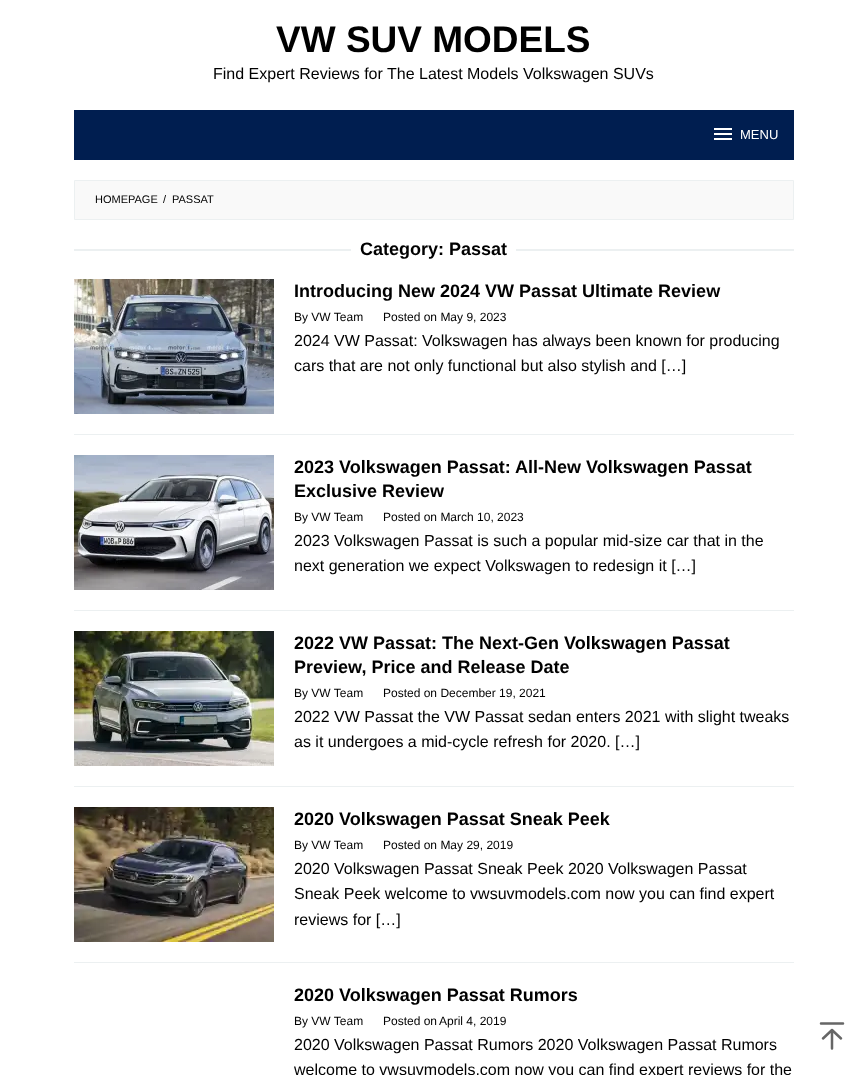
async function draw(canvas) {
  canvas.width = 867;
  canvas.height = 1075;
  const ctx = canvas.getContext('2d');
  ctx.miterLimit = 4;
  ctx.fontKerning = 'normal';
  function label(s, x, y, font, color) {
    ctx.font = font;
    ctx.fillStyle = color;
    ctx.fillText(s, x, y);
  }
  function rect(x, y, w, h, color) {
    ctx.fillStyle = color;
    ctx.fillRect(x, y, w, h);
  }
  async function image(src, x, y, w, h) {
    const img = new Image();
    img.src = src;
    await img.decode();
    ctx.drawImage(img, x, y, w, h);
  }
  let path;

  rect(0, 0, 867, 1075, '#fff');
  label('VW SUV MODELS', 276, 52, 'bold 37px Liberation Sans', '#000');
  label('Find Expert Reviews for The Latest Models Volkswagen SUVs', 213, 79, '16px Liberation Sans', '#000');
  rect(74, 110, 720, 50, '#001e50');
  await image('assets/img1.png', 714, 128, 18, 12);
  label('MENU', 740, 139, '13px Liberation Sans', '#fff');
  ctx.fillStyle = '#f9f9f9';
  ctx.beginPath();
  ctx.rect(74.5, 180.5, 719, 39);
  ctx.fill();
  ctx.strokeStyle = '#ecf0f1';
  ctx.stroke();
  label('HOMEPAGE', 95, 203, '11px Liberation Sans', '#000');
  label('/', 163, 203, '11px Liberation Sans', '#000');
  label('PASSAT', 172, 203, '11px Liberation Sans', '#000');
  rect(74, 249, 277, 2, '#ecf0f1');
  label('Category: Passat', 360, 255, 'bold 18px Liberation Sans', '#000');
  rect(516, 249, 278, 2, '#ecf0f1');
  rect(74, 434, 720, 1, '#ecf0f1');
  await image('assets/img2.png', 74, 279, 200, 135);
  label('Introducing New 2024 VW Passat Ultimate Review', 294, 297, 'bold 18px Liberation Sans', '#000');
  label('By VW Team', 294, 321, '12px Liberation Sans', '#000');
  label('Posted on May 9, 2023', 383, 321, '12px Liberation Sans', '#000');
  label('2024 VW Passat: Volkswagen has always been known for producing', 294, 346, '16px Liberation Sans', '#000');
  label('cars that are not only functional but also stylish and […]', 294, 371, '16px Liberation Sans', '#000');
  rect(74, 610, 720, 1, '#ecf0f1');
  await image('assets/img3.png', 74, 455, 200, 135);
  label('2023 Volkswagen Passat: All-New Volkswagen Passat', 294, 473, 'bold 18px Liberation Sans', '#000');
  label('Exclusive Review', 294, 497, 'bold 18px Liberation Sans', '#000');
  label('By VW Team', 294, 521, '12px Liberation Sans', '#000');
  label('Posted on March 10, 2023', 383, 521, '12px Liberation Sans', '#000');
  label('2023 Volkswagen Passat is such a popular mid-size car that in the', 294, 546, '16px Liberation Sans', '#000');
  label('next generation we expect Volkswagen to redesign it […]', 294, 571, '16px Liberation Sans', '#000');
  rect(74, 786, 720, 1, '#ecf0f1');
  await image('assets/img4.png', 74, 631, 200, 135);
  label('2022 VW Passat: The Next-Gen Volkswagen Passat', 294, 649, 'bold 18px Liberation Sans', '#000');
  label('Preview, Price and Release Date', 294, 673, 'bold 18px Liberation Sans', '#000');
  label('By VW Team', 294, 697, '12px Liberation Sans', '#000');
  label('Posted on December 19, 2021', 383, 697, '12px Liberation Sans', '#000');
  label('2022 VW Passat the VW Passat sedan enters 2021 with slight tweaks', 294, 722, '16px Liberation Sans', '#000');
  label('as it undergoes a mid-cycle refresh for 2020. […]', 294, 747, '16px Liberation Sans', '#000');
  rect(74, 962, 720, 1, '#ecf0f1');
  await image('assets/img5.png', 74, 807, 200, 135);
  label('2020 Volkswagen Passat Sneak Peek', 294, 825, 'bold 18px Liberation Sans', '#000');
  label('By VW Team', 294, 849, '12px Liberation Sans', '#000');
  label('Posted on May 29, 2019', 383, 849, '12px Liberation Sans', '#000');
  label('2020 Volkswagen Passat Sneak Peek 2020 Volkswagen Passat', 294, 874, '16px Liberation Sans', '#000');
  label('Sneak Peek welcome to vwsuvmodels.com now you can find expert', 294, 899, '16px Liberation Sans', '#000');
  label('reviews for […]', 294, 925, '16px Liberation Sans', '#000');
  label('2020 Volkswagen Passat Rumors', 294, 1001, 'bold 18px Liberation Sans', '#000');
  label('By VW Team', 294, 1025, '12px Liberation Sans', '#000');
  label('Posted on', 383, 1025, '12px Liberation Sans', '#000');
  label('April 4, 2019', 439, 1025, '12px Liberation Sans', '#000');
  label('2020 Volkswagen Passat Rumors 2020 Volkswagen Passat Rumors', 294, 1050, '16px Liberation Sans', '#000');
  label('welcome to vwsuvmodels.com now you can find expert reviews for the', 294, 1075, '16px Liberation Sans', '#000');
  path = new Path2D('M832 1048.5V1030M823 1038.5L832 1030L841 1038.5M821 1023.5H843');
  ctx.strokeStyle = '#666';
  ctx.lineWidth = 2.5;
  ctx.lineCap = 'round';
  ctx.lineJoin = 'round';
  ctx.stroke(path);
}

draw(document.querySelector('canvas'));
